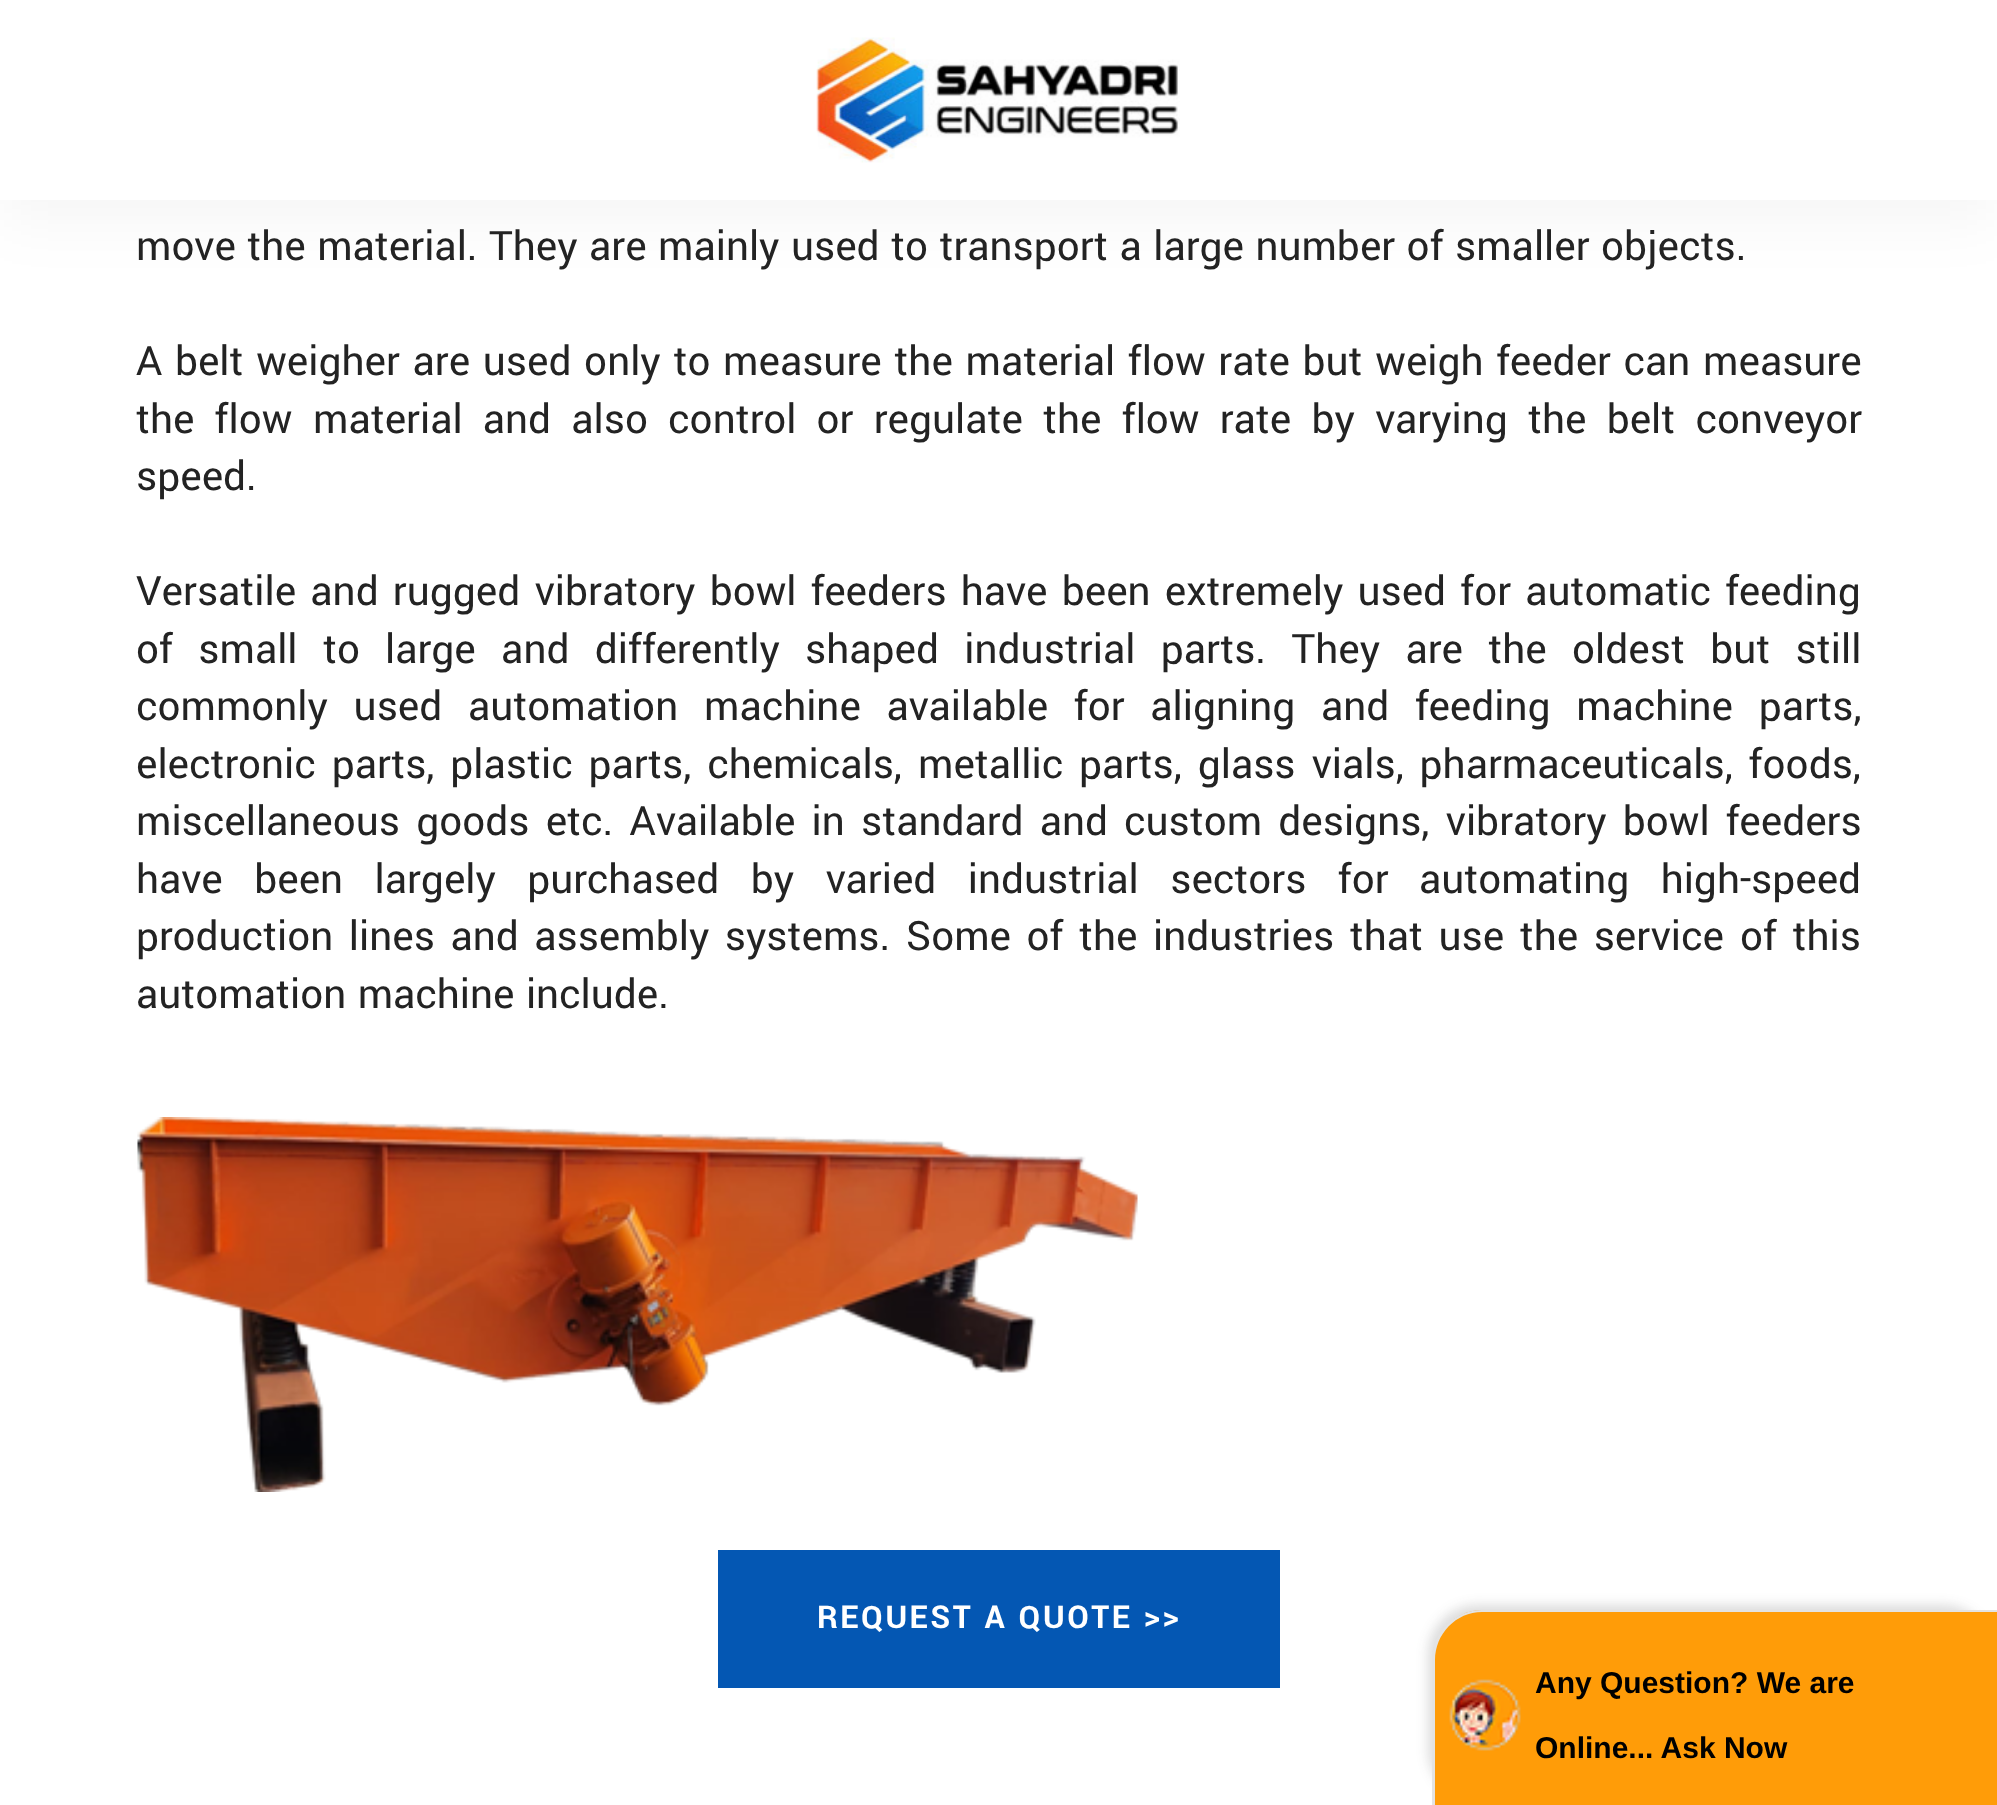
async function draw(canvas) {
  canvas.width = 1997;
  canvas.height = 1805;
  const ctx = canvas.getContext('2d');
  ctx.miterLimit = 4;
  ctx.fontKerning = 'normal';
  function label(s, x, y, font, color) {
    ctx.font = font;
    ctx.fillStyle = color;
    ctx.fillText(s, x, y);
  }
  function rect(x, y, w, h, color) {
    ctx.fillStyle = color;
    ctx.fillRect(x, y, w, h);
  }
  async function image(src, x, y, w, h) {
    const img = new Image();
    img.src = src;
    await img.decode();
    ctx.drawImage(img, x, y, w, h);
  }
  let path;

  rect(0, 0, 1997, 1805, '#fff');
  ctx.fillStyle = '#0000000a';
  ctx.filter = 'blur(31px)';
  ctx.beginPath();
  ctx.rect(0, 20, 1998, 200);
  ctx.fill();
  ctx.filter = 'none';
  rect(0, 0, 1997, 200, '#fff');
  await image('assets/img1.png', 816, 37, 364, 126);
  label('move the material. They are mainly used to transport a large number of smaller objects.', 136, 260, '45px Yantramanav', '#232323');
  ctx.wordSpacing = '1.25px';
  label('A belt weigher are used only to measure the material flow rate but weigh feeder can measure', 136, 375, '45px Yantramanav', '#232323');
  ctx.wordSpacing = '8.75px';
  label('the flow', 136, 433, '45px Yantramanav', '#232323');
  label('material and also control or regulate the flow rate by varying the belt conveyor', 313, 433, '45px Yantramanav', '#232323');
  ctx.wordSpacing = '0px';
  label('speed.', 136, 490, '45px Yantramanav', '#232323');
  ctx.wordSpacing = '2.75px';
  label('Versatile and rugged vibratory bowl feeders have been extremely used for automatic feeding', 136, 605, '45px Yantramanav', '#232323');
  ctx.wordSpacing = '13.9px';
  label('of small to', 136, 663, '45px Yantramanav', '#232323');
  label('large and differently shaped industrial parts. They are the oldest but still', 385, 663, '45px Yantramanav', '#232323');
  ctx.wordSpacing = '14.25px';
  label('commonly used automation', 136, 720, '45px Yantramanav', '#232323');
  label('machine available for aligning and feeding machine parts,', 704, 720, '45px Yantramanav', '#232323');
  ctx.wordSpacing = '4.5px';
  label('electronic parts, plastic parts, chemicals,', 136, 778, '45px Yantramanav', '#232323');
  label('metallic parts, glass vials, pharmaceuticals, foods,', 918, 778, '45px Yantramanav', '#232323');
  ctx.wordSpacing = '4.75px';
  label('miscellaneous goods etc. Available in standard and', 136, 835, '45px Yantramanav', '#232323');
  label('custom designs, vibratory bowl feeders', 1124, 835, '45px Yantramanav', '#232323');
  ctx.wordSpacing = '20px';
  label('have been largely purchased by varied industrial sectors for', 136, 893, '45px Yantramanav', '#232323');
  label('automating high-speed', 1419, 893, '45px Yantramanav', '#232323');
  ctx.wordSpacing = '4.1px';
  label('production lines and assembly systems. Some of the industries that use the service', 136, 950, '45px Yantramanav', '#232323');
  ctx.wordSpacing = '4px';
  label('of this', 1740, 950, '45px Yantramanav', '#232323');
  ctx.wordSpacing = '0px';
  label('automation machine include.', 136, 1008, '45px Yantramanav', '#232323');
  await image('assets/img2.png', 137, 1117, 1001, 375);
  rect(718, 1550, 562, 138, '#0457b3');
  ctx.letterSpacing = '2.5px';
  label('REQUEST A QUOTE >>', 817, 1628, 'bold 35px Yantramanav', '#fff');
  ctx.fillStyle = '#3232322b';
  ctx.filter = 'blur(6px)';
  ctx.beginPath();
  ctx.roundRect(1428, 1605, 565, 195, 50);
  ctx.fill();
  ctx.filter = 'none';
  ctx.fillStyle = '#ff9c08';
  path = new Path2D('M1483 1610H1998V1805H1433V1660C1433 1632.5 1455.5 1610 1483 1610Z');
  ctx.fill(path);
  ctx.fillStyle = '#e3e3e3';
  path = new Path2D('M1482 1610H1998V1805H1432V1660C1432 1632 1455 1610 1482 1610ZM1482 1612H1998V1805H1435V1660C1435 1634 1456 1612 1482 1612Z');
  ctx.fill(path, 'evenodd');
  await image('assets/img3.png', 1449, 1679, 72, 72);
  ctx.letterSpacing = '0px';
  label('Any Question? We are', 1535, 1693, 'bold 30px Liberation Sans', '#000');
  label('Online... Ask Now', 1535, 1758, 'bold 30px Liberation Sans', '#000');
}

draw(document.querySelector('canvas'));
